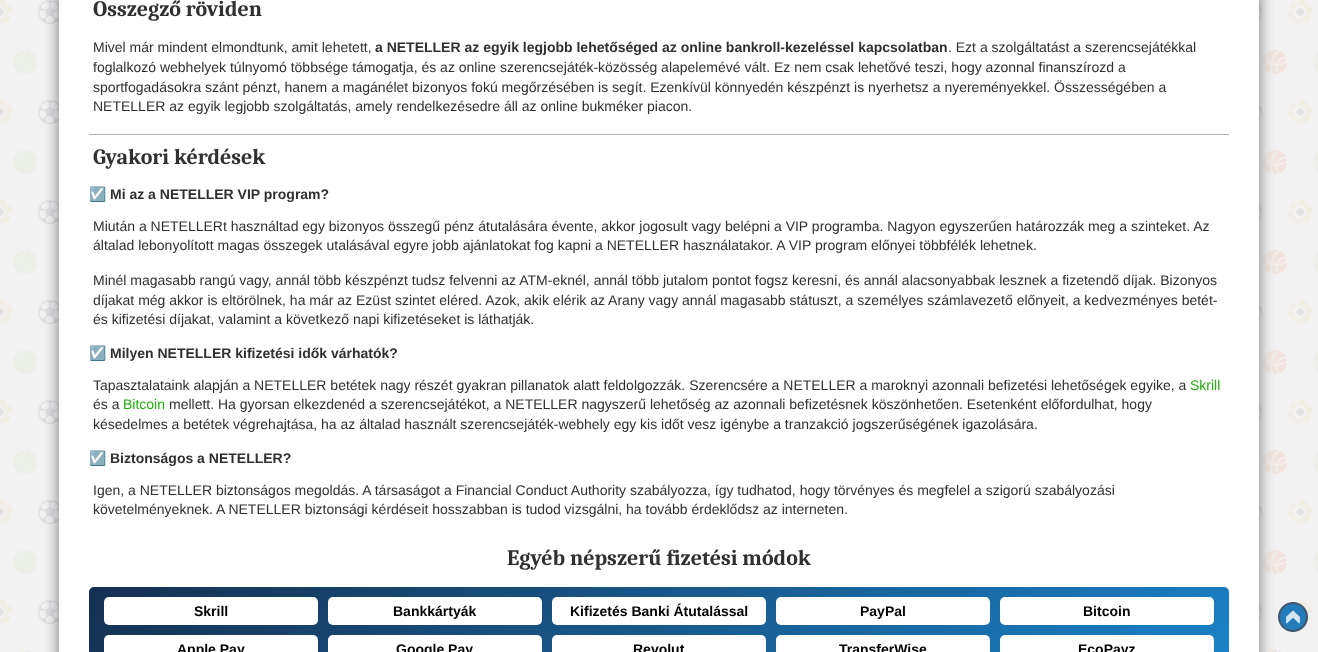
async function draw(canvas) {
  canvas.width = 1318;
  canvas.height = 652;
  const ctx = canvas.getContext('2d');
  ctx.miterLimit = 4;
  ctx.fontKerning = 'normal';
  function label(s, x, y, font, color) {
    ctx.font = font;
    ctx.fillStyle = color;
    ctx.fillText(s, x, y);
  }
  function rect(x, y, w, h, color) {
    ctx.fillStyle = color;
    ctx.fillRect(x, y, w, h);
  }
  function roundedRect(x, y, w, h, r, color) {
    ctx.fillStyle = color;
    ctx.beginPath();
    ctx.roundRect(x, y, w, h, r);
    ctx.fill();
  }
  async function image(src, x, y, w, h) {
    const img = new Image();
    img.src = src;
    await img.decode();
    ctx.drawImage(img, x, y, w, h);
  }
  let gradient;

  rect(0, 0, 1318, 652, '#fff');
  await image('assets/img1.png', 0, 0, 1318, 652);
  ctx.fillStyle = '#00000080';
  ctx.filter = 'blur(7.5px)';
  ctx.beginPath();
  ctx.rect(59, -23, 1200, 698);
  ctx.fill();
  ctx.filter = 'none';
  rect(59, 0, 1200, 652, '#fff');
  label('Összegző röviden', 93, 16, 'bold 22px Caladea', '#303030');
  label('Mivel már mindent elmondtunk, amit lehetett,', 93, 52, '14px Liberation Sans', '#303030');
  label('a NETELLER az egyik legjobb lehetőséged az online bankroll-kezeléssel kapcsolatban', 375, 52, 'bold 14px Liberation Sans', '#303030');
  label('. Ezt a szolgáltatást a szerencsejátékkal', 948, 52, '14px Liberation Sans', '#303030');
  label('foglalkozó webhelyek túlnyomó többsége támogatja, és az online szerencsejáték-közösség alapelemévé vált. Ez nem csak lehetővé teszi, hogy azonnal finanszírozd a', 93, 72, '14px Liberation Sans', '#303030');
  label('sportfogadásokra szánt pénzt, hanem a magánélet bizonyos fokú megőrzésében is segít. Ezenkívül könnyedén készpénzt is nyerhetsz a nyereményekkel. Összességében a', 93, 92, '14px Liberation Sans', '#303030');
  label('NETELLER az egyik legjobb szolgáltatás, amely rendelkezésedre áll az online bukméker piacon.', 93, 111, '14px Liberation Sans', '#303030');
  rect(89, 134, 1140, 1, '#b2b2b2');
  label('Gyakori kérdések', 93, 164, 'bold 22px Caladea', '#303030');
  label('☑️', 89, 199, 'bold 14px Noto Color Emoji', '#303030');
  label('Mi az a NETELLER VIP program?', 110, 199, 'bold 14px Liberation Sans', '#303030');
  label('Miután a NETELLERt használtad egy bizonyos összegű pénz átutalására évente, akkor jogosult vagy belépni a VIP programba. Nagyon egyszerűen határozzák meg a szinteket. Az', 93, 231, '14px Liberation Sans', '#303030');
  label('általad lebonyolított magas összegek utalásával egyre jobb ajánlatokat fog kapni a NETELLER használatakor. A VIP program előnyei többfélék lehetnek.', 93, 250, '14px Liberation Sans', '#303030');
  label('Minél magasabb rangú vagy, annál több készpénzt tudsz felvenni az ATM-eknél, annál több jutalom pontot fogsz keresni, és annál alacsonyabbak lesznek a fizetendő díjak. Bizonyos', 93, 285, '14px Liberation Sans', '#303030');
  label('díjakat még akkor is eltörölnek, ha már az Ezüst szintet eléred. Azok, akik elérik az Arany vagy annál magasabb státuszt, a személyes számlavezető előnyeit, a kedvezményes betét-', 93, 305, '14px Liberation Sans', '#303030');
  label('és kifizetési díjakat, valamint a következő napi kifizetéseket is láthatják.', 93, 324, '14px Liberation Sans', '#303030');
  label('☑️', 89, 358, 'bold 14px Noto Color Emoji', '#303030');
  label('Milyen NETELLER kifizetési idők várhatók?', 110, 358, 'bold 14px Liberation Sans', '#303030');
  label('Tapasztalataink alapján a NETELLER betétek nagy részét gyakran pillanatok alatt feldolgozzák. Szerencsére a NETELLER a maroknyi azonnali befizetési lehetőségek egyike, a', 93, 390, '14px Liberation Sans', '#303030');
  label('Skrill', 1190, 390, '14px Liberation Sans', '#24ab10');
  label('és a', 93, 409, '14px Liberation Sans', '#303030');
  label('Bitcoin', 123, 409, '14px Liberation Sans', '#24ab10');
  label('mellett. Ha gyorsan elkezdenéd a szerencsejátékot, a NETELLER nagyszerű lehetőség az azonnali befizetésnek köszönhetően. Esetenként előfordulhat, hogy', 169, 409, '14px Liberation Sans', '#303030');
  label('késedelmes a betétek végrehajtása, ha az általad használt szerencsejáték-webhely egy kis időt vesz igénybe a tranzakció jogszerűségének igazolására.', 93, 429, '14px Liberation Sans', '#303030');
  label('☑️', 89, 463, 'bold 14px Noto Color Emoji', '#303030');
  label('Biztonságos a NETELLER?', 110, 463, 'bold 14px Liberation Sans', '#303030');
  label('Igen, a NETELLER biztonságos megoldás. A társaságot a Financial Conduct Authority szabályozza, így tudhatod, hogy törvényes és megfelel a szigorú szabályozási', 93, 495, '14px Liberation Sans', '#303030');
  label('követelményeknek. A NETELLER biztonsági kérdéseit hosszabban is tudod vizsgálni, ha tovább érdeklődsz az interneten.', 93, 514, '14px Liberation Sans', '#303030');
  label('Egyéb népszerű fizetési módok', 507, 565, 'bold 22px Caladea', '#303030');
  gradient = ctx.createLinearGradient(393, 332, 925, 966);
  gradient.addColorStop(0, '#153051');
  gradient.addColorStop(1, '#1b86cd');
  ctx.fillStyle = gradient;
  ctx.beginPath();
  ctx.roundRect(89, 587, 1140, 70, 5);
  ctx.fill();
  roundedRect(104, 597, 214, 28, 5, '#fff');
  label('Skrill', 194, 616, 'bold 14px Liberation Sans', '#000');
  roundedRect(328, 597, 214, 28, 5, '#fff');
  label('Bankkártyák', 393, 616, 'bold 14px Liberation Sans', '#000');
  roundedRect(552, 597, 214, 28, 5, '#fff');
  label('Kifizetés Banki Átutalással', 570, 616, 'bold 14px Liberation Sans', '#000');
  roundedRect(776, 597, 214, 28, 5, '#fff');
  label('PayPal', 860, 616, 'bold 14px Liberation Sans', '#000');
  roundedRect(1000, 597, 214, 28, 5, '#fff');
  label('Bitcoin', 1083, 616, 'bold 14px Liberation Sans', '#000');
  roundedRect(104, 635, 214, 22, 5, '#fff');
  label('Apple Pay', 177, 654, 'bold 14px Liberation Sans', '#000');
  roundedRect(328, 635, 214, 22, 5, '#fff');
  label('Google Pay', 396, 654, 'bold 14px Liberation Sans', '#000');
  roundedRect(552, 635, 214, 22, 5, '#fff');
  label('Revolut', 633, 654, 'bold 14px Liberation Sans', '#000');
  roundedRect(776, 635, 214, 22, 5, '#fff');
  label('TransferWise', 839, 654, 'bold 14px Liberation Sans', '#000');
  roundedRect(1000, 635, 214, 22, 5, '#fff');
  label('EcoPayz', 1078, 654, 'bold 14px Liberation Sans', '#000');
  await image('assets/img2.png', 1278, 602, 30, 30);
}

draw(document.querySelector('canvas'));
